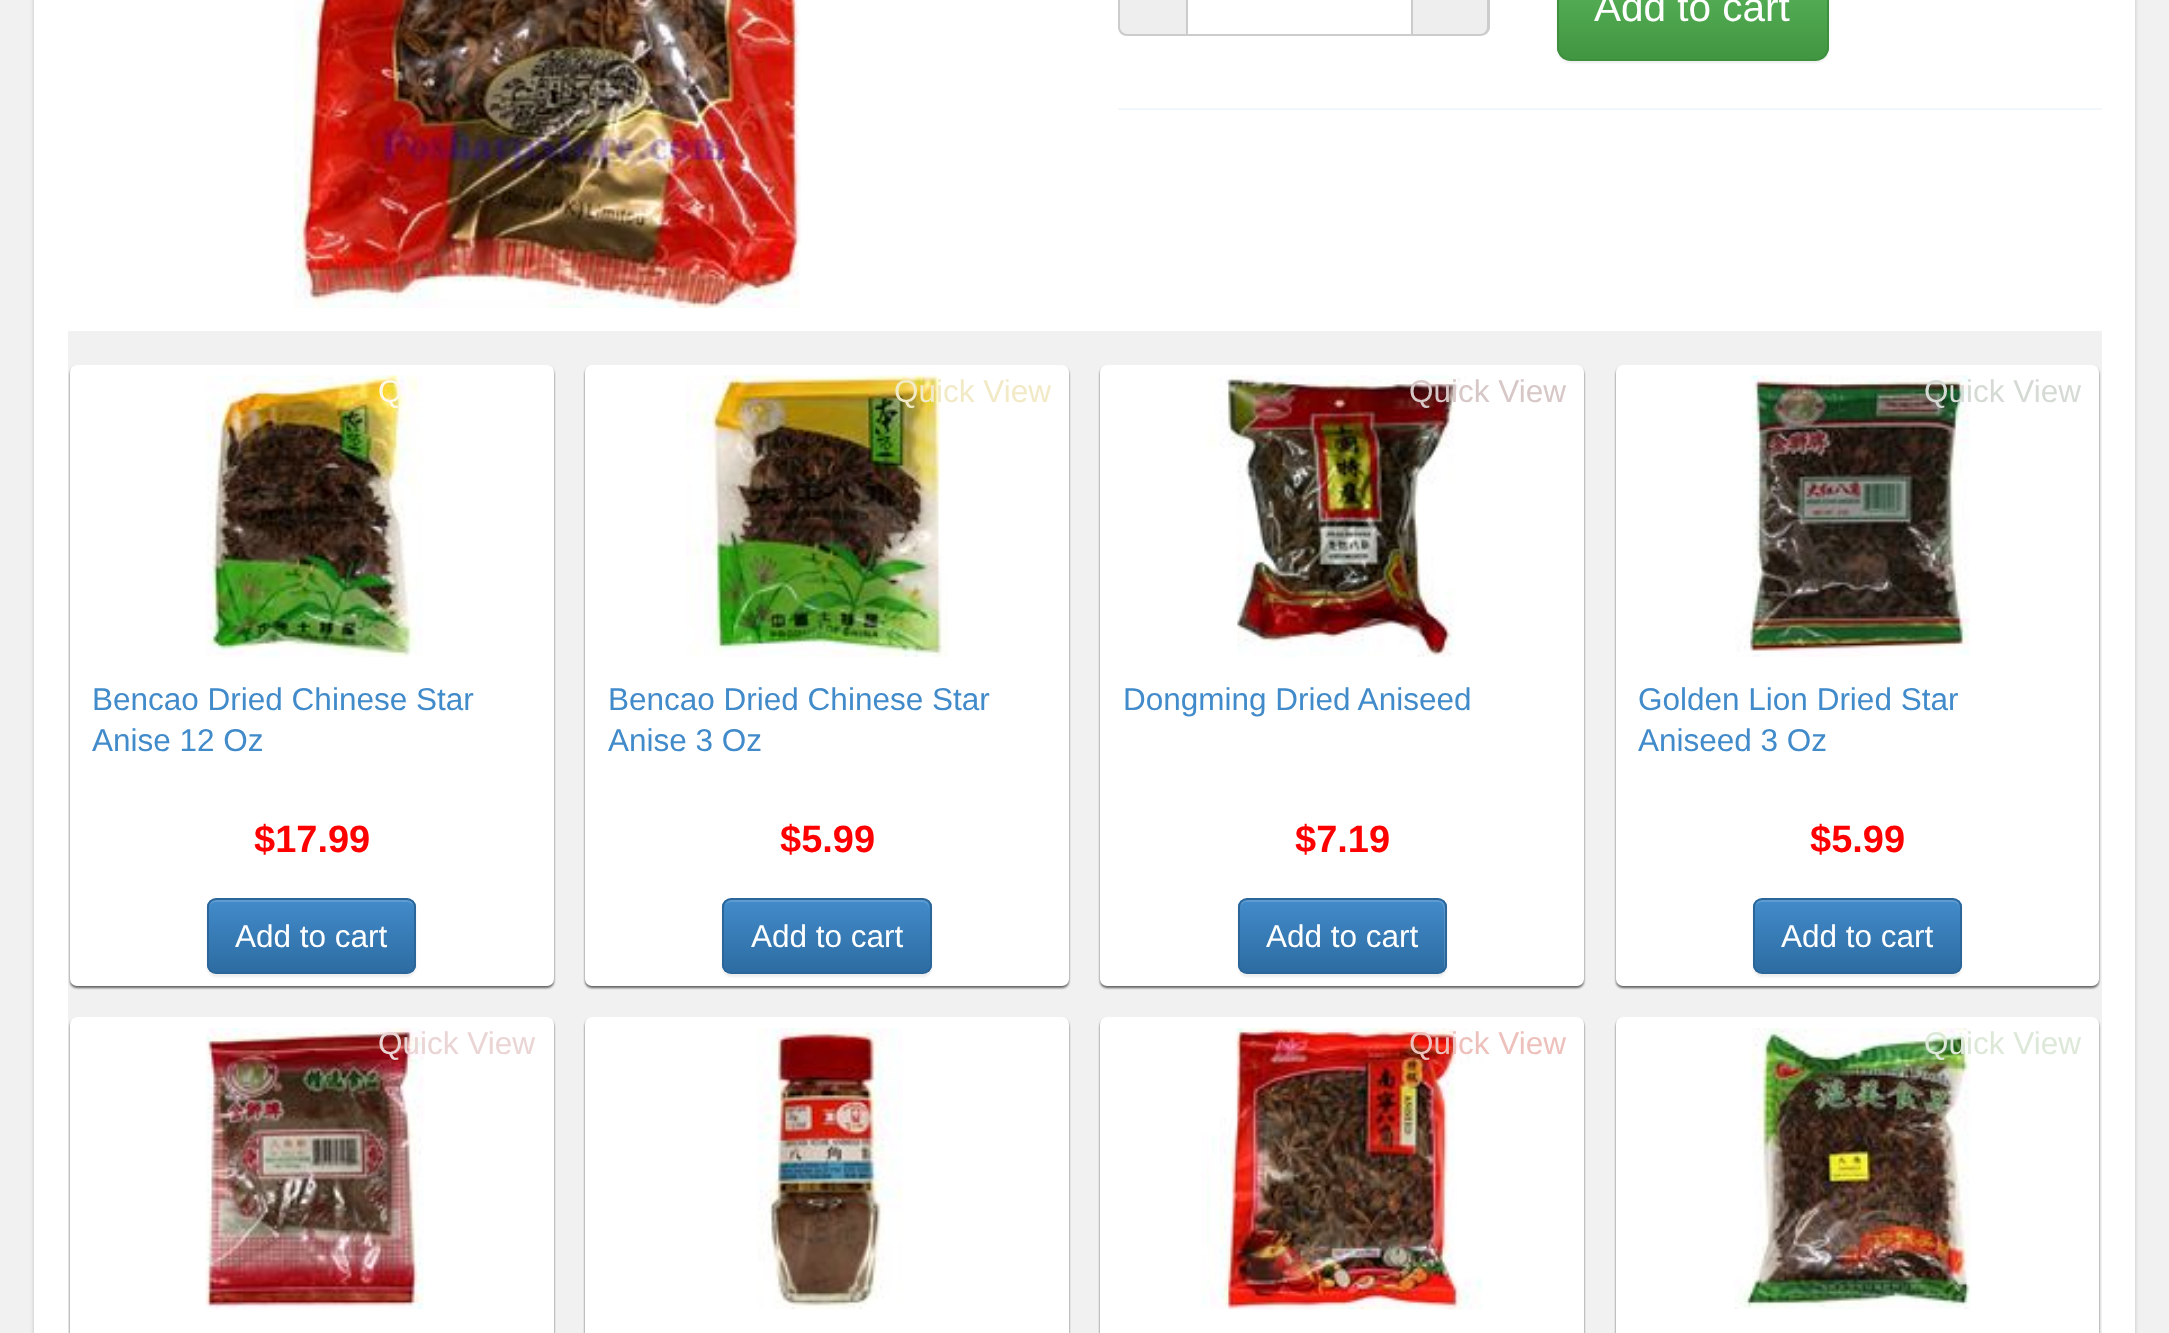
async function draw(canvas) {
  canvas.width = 2169;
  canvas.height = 1333;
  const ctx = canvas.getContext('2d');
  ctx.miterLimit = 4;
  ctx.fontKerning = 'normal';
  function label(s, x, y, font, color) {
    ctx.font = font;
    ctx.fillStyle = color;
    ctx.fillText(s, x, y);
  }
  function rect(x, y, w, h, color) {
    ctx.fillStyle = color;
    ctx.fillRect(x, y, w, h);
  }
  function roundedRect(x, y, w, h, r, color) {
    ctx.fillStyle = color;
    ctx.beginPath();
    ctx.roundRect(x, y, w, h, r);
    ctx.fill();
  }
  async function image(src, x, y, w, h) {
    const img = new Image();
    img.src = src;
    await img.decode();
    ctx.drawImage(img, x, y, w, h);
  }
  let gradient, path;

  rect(0, 0, 2169, 1333, '#f1f1f1');
  ctx.fillStyle = '#00000033';
  ctx.filter = 'blur(2px)';
  ctx.beginPath();
  ctx.rect(34, -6, 2101, 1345);
  ctx.fill();
  ctx.filter = 'none';
  rect(34, 0, 2101, 1333, '#fff');
  await image('assets/img1.png', 294, 0, 507, 308);
  ctx.fillStyle = '#eee';
  path = new Path2D('M1127-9H1186V36H1127C1122 36 1118 32 1118 27V0C1118-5 1122-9 1127-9Z');
  ctx.fill(path);
  ctx.fillStyle = '#ccc';
  path = new Path2D('M1127-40H1186V36H1127C1122 36 1118 32 1118 27V-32C1118-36 1122-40 1127-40ZM1127-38H1186V34H1127C1124 34 1120 31 1120 27V-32C1120-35 1124-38 1127-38Z');
  ctx.fill(path, 'evenodd');
  ctx.strokeStyle = '#ccc';
  ctx.lineWidth = 2;
  ctx.strokeRect(1187, -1, 225, 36);
  ctx.fillStyle = '#eee';
  path = new Path2D('M1413-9H1481C1486-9 1490-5 1490 0V27C1490 32 1486 36 1481 36H1413Z');
  ctx.fill(path);
  ctx.fillStyle = '#ccc';
  path = new Path2D('M1413-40H1480C1485-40 1490-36 1490-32V27C1490 32 1485 36 1480 36H1413ZM1413-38H1480C1484-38 1487-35 1487-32V27C1487 31 1484 34 1480 34H1413Z');
  ctx.fill(path, 'evenodd');
  ctx.fillStyle = '#00000012';
  ctx.filter = 'blur(1px)';
  ctx.beginPath();
  ctx.roundRect(1557, -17, 272, 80, 14);
  ctx.fill();
  ctx.filter = 'none';
  ctx.save();
  ctx.beginPath();
  ctx.roundRect(1557, -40, 272, 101, 14);
  ctx.clip();
  gradient = ctx.createLinearGradient(1693, -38, 1693, 59);
  gradient.addColorStop(0, '#5cb85c');
  gradient.addColorStop(1, '#419641');
  ctx.fillStyle = gradient;
  ctx.fillRect(1557, 0, 272, 59);
  ctx.restore();
  ctx.beginPath();
  ctx.roundRect(1558, -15, 270, 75, 13);
  ctx.strokeStyle = '#3e8f3e';
  ctx.stroke();
  label('Add to cart', 1594, 21, '40.5px Liberation Sans', '#fff');
  rect(1118, 108, 984, 2, '#f2f7fb');
  rect(68, 331, 2034, 1002, '#f1f1f1');
  ctx.fillStyle = '#00000099';
  ctx.filter = 'blur(1px)';
  ctx.beginPath();
  ctx.roundRect(70, 367, 484, 621, 7);
  ctx.fill();
  ctx.filter = 'none';
  roundedRect(70, 365, 484, 621, 7, '#fff');
  await image('assets/img2.png', 205, 375, 218, 282);
  label('Q', 378, 402, '31.5px Liberation Sans', '#fef9e7');
  label('Bencao Dried Chinese Star', 92, 710, '31.5px Liberation Sans', '#428bca');
  label('Anise 12 Oz', 92, 751, '31.5px Liberation Sans', '#428bca');
  label('$17.99', 254, 852, 'bold 38px Liberation Sans', '#f00');
  ctx.fillStyle = '#00000012';
  ctx.filter = 'blur(1px)';
  ctx.beginPath();
  ctx.roundRect(207, 900, 209, 77, 9);
  ctx.fill();
  ctx.filter = 'none';
  ctx.save();
  ctx.beginPath();
  ctx.roundRect(207, 898, 209, 76, 9);
  ctx.clip();
  gradient = ctx.createLinearGradient(312, 900, 312, 972);
  gradient.addColorStop(0, '#428bca');
  gradient.addColorStop(1, '#2d6ca2');
  ctx.fillStyle = gradient;
  ctx.fillRect(207, 900, 209, 72);
  ctx.restore();
  ctx.fillStyle = '#ffffff26';
  path = new Path2D('M216 902H407C411 902 414 905 414 909V907C414 903 411 900 407 900H216C212 900 209 903 209 907V909C209 905 212 902 216 902Z');
  ctx.fill(path);
  ctx.beginPath();
  ctx.roundRect(208, 899, 207, 74, 8);
  ctx.strokeStyle = '#2b669a';
  ctx.stroke();
  label('Add to cart', 235, 947, '31.5px Liberation Sans', '#fff');
  ctx.fillStyle = '#00000099';
  ctx.filter = 'blur(1px)';
  ctx.beginPath();
  ctx.roundRect(585, 367, 484, 621, 7);
  ctx.fill();
  ctx.filter = 'none';
  roundedRect(585, 365, 484, 621, 7, '#fff');
  await image('assets/img3.png', 686, 375, 262, 282);
  label('Quick View', 894, 402, '31.5px Liberation Sans', '#f2eac6');
  label('Bencao Dried Chinese Star', 608, 710, '31.5px Liberation Sans', '#428bca');
  label('Anise 3 Oz', 608, 751, '31.5px Liberation Sans', '#428bca');
  label('$5.99', 780, 852, 'bold 38px Liberation Sans', '#f00');
  ctx.fillStyle = '#00000012';
  ctx.filter = 'blur(1px)';
  ctx.beginPath();
  ctx.roundRect(722, 900, 210, 77, 9);
  ctx.fill();
  ctx.filter = 'none';
  ctx.save();
  ctx.beginPath();
  ctx.roundRect(722, 898, 210, 76, 9);
  ctx.clip();
  gradient = ctx.createLinearGradient(827, 900, 827, 972);
  gradient.addColorStop(0, '#428bca');
  gradient.addColorStop(1, '#2d6ca2');
  ctx.fillStyle = gradient;
  ctx.fillRect(722, 900, 210, 72);
  ctx.restore();
  ctx.fillStyle = '#ffffff26';
  path = new Path2D('M731 902H922C926 902 929 905 929 909V907C929 903 926 900 922 900H732C729 900 726 902 725 905C727 903 729 902 731 902Z');
  ctx.fill(path);
  ctx.beginPath();
  ctx.roundRect(723, 899, 208, 74, 8);
  ctx.stroke();
  label('Add to cart', 751, 947, '31.5px Liberation Sans', '#fff');
  ctx.fillStyle = '#00000099';
  ctx.filter = 'blur(1px)';
  ctx.beginPath();
  ctx.roundRect(1100, 367, 484, 621, 7);
  ctx.fill();
  ctx.filter = 'none';
  roundedRect(1100, 365, 484, 621, 7, '#fff');
  await image('assets/img4.png', 1207, 375, 259, 282);
  label('Quick View', 1409, 402, '31.5px Liberation Sans', '#d7c7c7');
  label('Dongming Dried Aniseed', 1123, 710, '31.5px Liberation Sans', '#428bca');
  label('$7.19', 1295, 852, 'bold 38px Liberation Sans', '#f00');
  ctx.fillStyle = '#00000012';
  ctx.filter = 'blur(1px)';
  ctx.beginPath();
  ctx.roundRect(1238, 900, 209, 77, 9);
  ctx.fill();
  ctx.filter = 'none';
  ctx.save();
  ctx.beginPath();
  ctx.roundRect(1238, 898, 209, 76, 9);
  ctx.clip();
  gradient = ctx.createLinearGradient(1342, 900, 1342, 972);
  gradient.addColorStop(0, '#428bca');
  gradient.addColorStop(1, '#2d6ca2');
  ctx.fillStyle = gradient;
  ctx.fillRect(1238, 900, 209, 72);
  ctx.restore();
  ctx.fillStyle = '#ffffff26';
  path = new Path2D('M1246 902H1438C1446 902 1444 915 1444 919V969C1445 968 1445 966 1445 965V907C1445 903 1442 900 1438 900H1247C1243 900 1240 903 1240 907V909C1240 905 1243 902 1246 902Z');
  ctx.fill(path);
  ctx.beginPath();
  ctx.roundRect(1239, 899, 207, 74, 8);
  ctx.stroke();
  label('Add to cart', 1266, 947, '31.5px Liberation Sans', '#fff');
  ctx.fillStyle = '#00000099';
  ctx.filter = 'blur(1px)';
  ctx.beginPath();
  ctx.roundRect(1616, 367, 483, 621, 7);
  ctx.fill();
  ctx.filter = 'none';
  roundedRect(1616, 365, 483, 621, 7, '#fff');
  await image('assets/img5.png', 1735, 375, 235, 282);
  label('Quick View', 1924, 402, '31.5px Liberation Sans', '#d5dbd4');
  label('Golden Lion Dried Star', 1638, 710, '31.5px Liberation Sans', '#428bca');
  label('Aniseed 3 Oz', 1638, 751, '31.5px Liberation Sans', '#428bca');
  label('$5.99', 1810, 852, 'bold 38px Liberation Sans', '#f00');
  ctx.fillStyle = '#00000012';
  ctx.filter = 'blur(1px)';
  ctx.beginPath();
  ctx.roundRect(1753, 900, 209, 77, 9);
  ctx.fill();
  ctx.filter = 'none';
  ctx.save();
  ctx.beginPath();
  ctx.roundRect(1753, 898, 209, 76, 9);
  ctx.clip();
  gradient = ctx.createLinearGradient(1857, 900, 1857, 972);
  gradient.addColorStop(0, '#428bca');
  gradient.addColorStop(1, '#2d6ca2');
  ctx.fillStyle = gradient;
  ctx.fillRect(1753, 900, 209, 72);
  ctx.restore();
  ctx.fillStyle = '#ffffff26';
  path = new Path2D('M1762 902H1953C1957 902 1960 905 1960 909V907C1960 903 1957 900 1953 900H1762C1758 900 1755 903 1755 907V909C1755 905 1758 902 1762 902Z');
  ctx.fill(path);
  ctx.beginPath();
  ctx.roundRect(1754, 899, 207, 74, 8);
  ctx.stroke();
  label('Add to cart', 1781, 947, '31.5px Liberation Sans', '#fff');
  ctx.fillStyle = '#00000099';
  ctx.filter = 'blur(1px)';
  ctx.beginPath();
  ctx.roundRect(70, 1019, 484, 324, 7);
  ctx.fill();
  ctx.filter = 'none';
  roundedRect(70, 1017, 484, 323, 7, '#fff');
  await image('assets/img6.png', 205, 1028, 220, 282);
  label('Quick View', 378, 1054, '31.5px Liberation Sans', '#ead4d4');
  ctx.fillStyle = '#00000099';
  ctx.filter = 'blur(1px)';
  ctx.beginPath();
  ctx.roundRect(585, 1019, 484, 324, 7);
  ctx.fill();
  ctx.filter = 'none';
  roundedRect(585, 1017, 484, 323, 7, '#fff');
  await image('assets/img7.png', 757, 1028, 146, 282);
  ctx.fillStyle = '#00000099';
  ctx.filter = 'blur(1px)';
  ctx.beginPath();
  ctx.roundRect(1100, 1019, 484, 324, 7);
  ctx.fill();
  ctx.filter = 'none';
  roundedRect(1100, 1017, 484, 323, 7, '#fff');
  await image('assets/img8.png', 1201, 1028, 282, 282);
  label('Quick View', 1409, 1054, '31.5px Liberation Sans', '#eec0bc');
  ctx.fillStyle = '#00000099';
  ctx.filter = 'blur(1px)';
  ctx.beginPath();
  ctx.roundRect(1616, 1019, 483, 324, 7);
  ctx.fill();
  ctx.filter = 'none';
  roundedRect(1616, 1017, 483, 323, 7, '#fff');
  await image('assets/img9.png', 1734, 1028, 237, 281);
  label('Quick View', 1924, 1054, '31.5px Liberation Sans', '#dde8d9');
}

draw(document.querySelector('canvas'));
